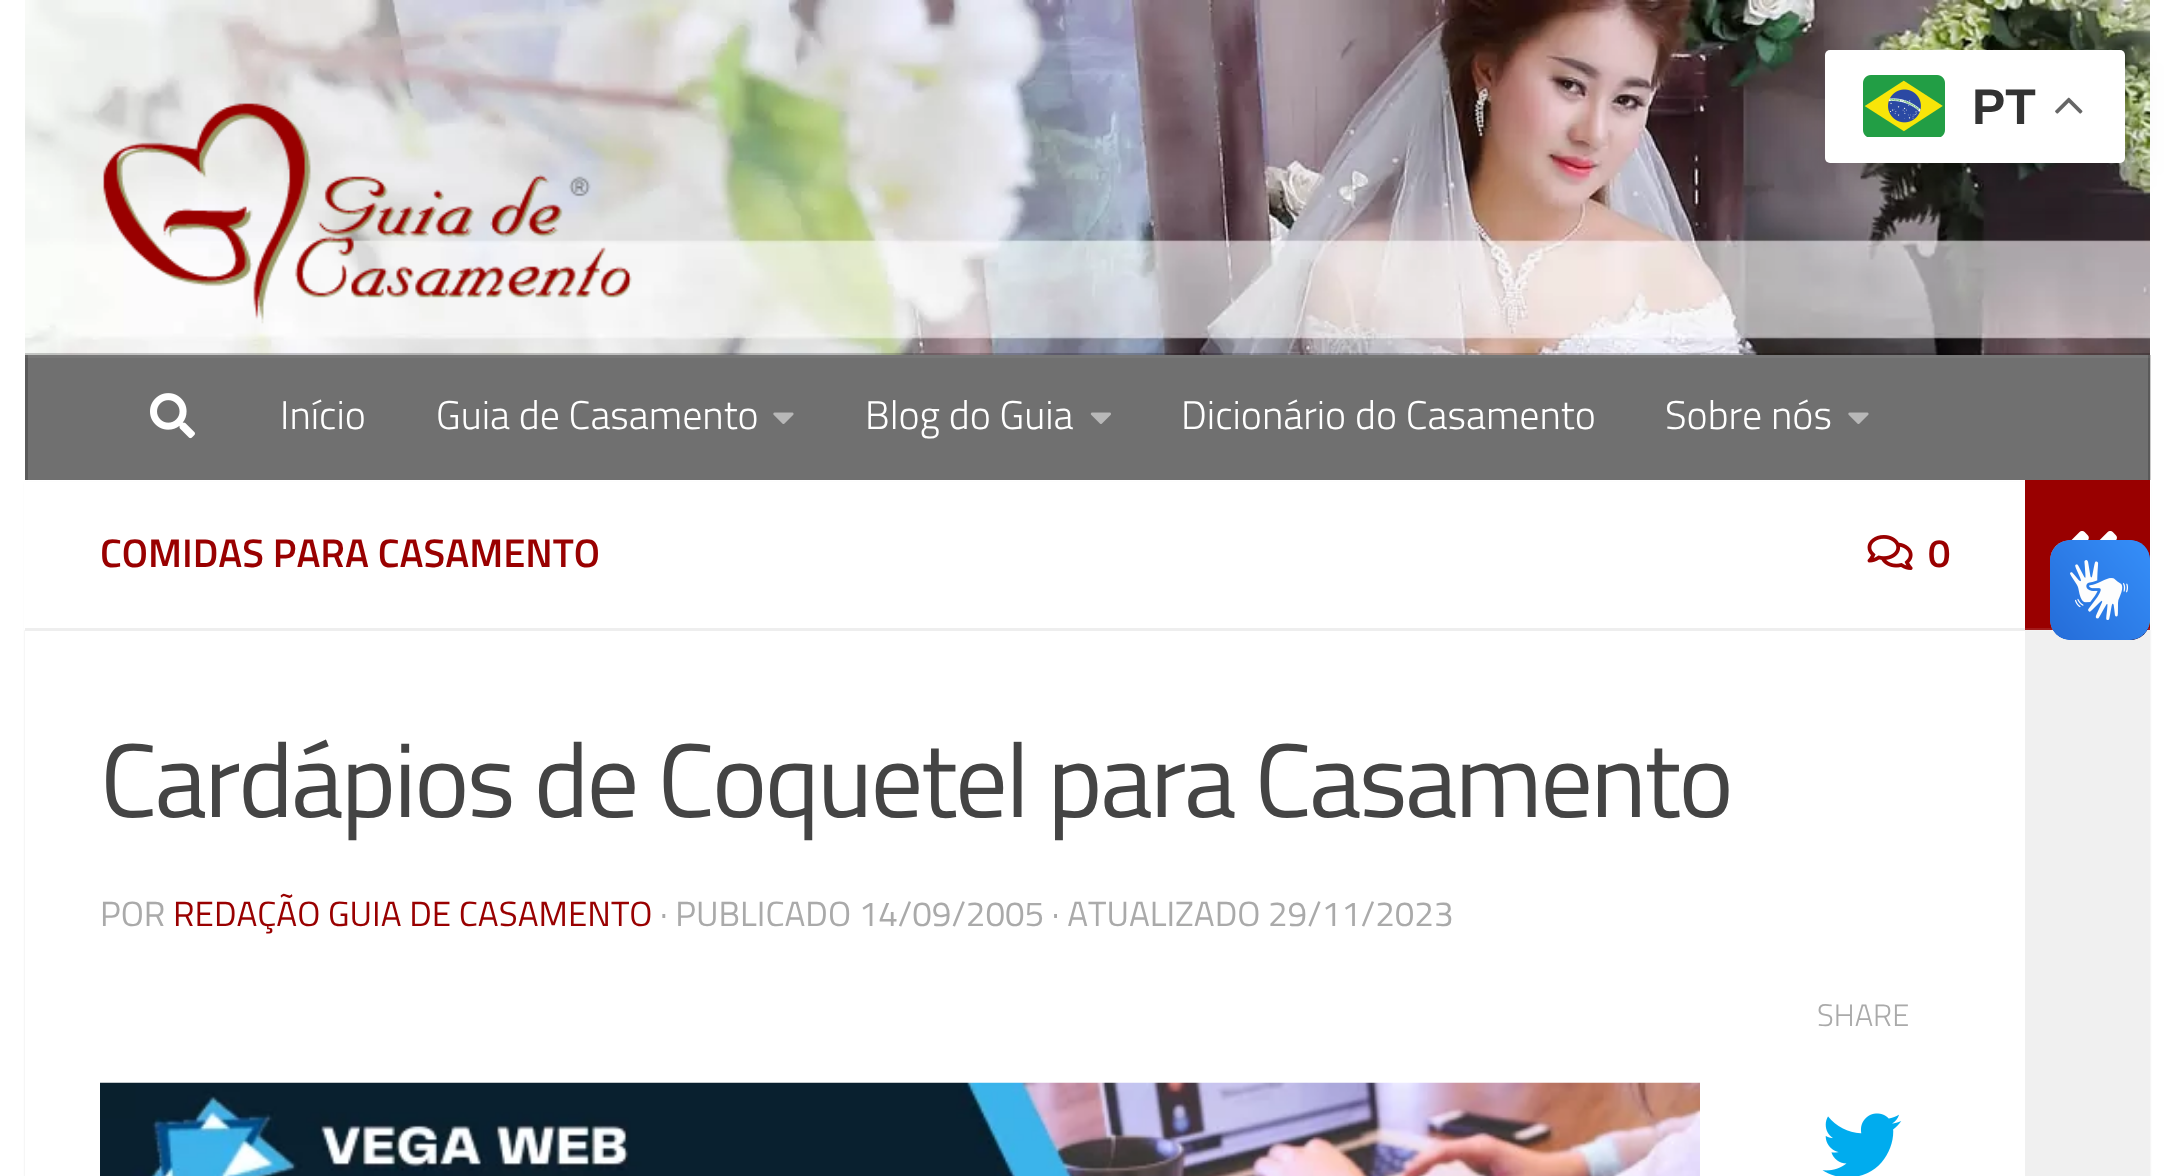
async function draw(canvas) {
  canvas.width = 2174;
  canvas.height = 1176;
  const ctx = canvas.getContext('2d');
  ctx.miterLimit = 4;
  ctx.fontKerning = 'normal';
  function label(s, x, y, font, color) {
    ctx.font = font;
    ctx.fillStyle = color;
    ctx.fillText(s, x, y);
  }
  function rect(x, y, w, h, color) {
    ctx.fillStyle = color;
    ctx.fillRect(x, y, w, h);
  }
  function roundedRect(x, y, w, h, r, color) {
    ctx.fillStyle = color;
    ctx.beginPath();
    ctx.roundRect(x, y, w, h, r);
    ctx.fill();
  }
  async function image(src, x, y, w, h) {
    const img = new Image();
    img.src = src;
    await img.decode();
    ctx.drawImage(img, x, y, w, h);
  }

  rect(0, 0, 2174, 1176, '#fff');
  await image('assets/img3.png', 25, 0, 2125, 355);
  ctx.fillStyle = '#00000026';
  ctx.filter = 'blur(19px)';
  ctx.beginPath();
  ctx.roundRect(1825, 63, 300, 112, 5);
  ctx.fill();
  ctx.filter = 'none';
  roundedRect(1825, 50, 300, 113, 5, '#fff');
  await image('assets/img1.png', 1863, 75, 82, 62);
  label('PT', 1972, 124, 'bold 50px Liberation Sans', '#333');
  await image('assets/img2.png', 2055, 97, 28, 17);
  ctx.fillStyle = '#0000001a';
  ctx.filter = 'blur(1px)';
  ctx.beginPath();
  ctx.rect(25, 483, 2125, 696);
  ctx.fill();
  ctx.filter = 'none';
  rect(24, 482, 2127, 148, '#fff');
  rect(2150, 355, 1, 125, '#ccc');
  await image('assets/img4.png', 103, 103, 529, 221);
  rect(25, 353, 2125, 2, '#00000033');
  rect(28, 358, 2120, 122, '#707070');
  rect(25, 355, 2125, 3, '#777');
  rect(2148, 355, 2, 125, '#5a5a5a');
  rect(2148, 355, 2, 3, '#626262');
  rect(25, 355, 3, 125, '#5a5a5a');
  rect(25, 355, 3, 3, '#626262');
  await image('assets/img5.png', 150, 393, 45, 46);
  label('Início', 280, 429, '300 40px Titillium', '#fff');
  label('Guia de Casamento', 436, 429, '300 40px Titillium', '#fff');
  await image('assets/img6.png', 773, 412, 21, 12);
  label('Blog do Guia', 865, 429, '300 40px Titillium', '#fff');
  await image('assets/img7.png', 1090, 412, 21, 12);
  label('Dicionário do Casamento', 1181, 429, '300 40px Titillium', '#fff');
  label('Sobre nós', 1665, 429, '300 40px Titillium', '#fff');
  await image('assets/img6.png', 1848, 412, 21, 12);
  rect(25, 630, 2000, 546, '#fff');
  rect(25, 628, 2000, 3, '#eee');
  label('COMIDAS PARA CASAMENTO', 100, 567, '600 40px Titillium', '#900');
  await image('assets/img8.png', 1867, 535, 46, 35);
  label('0', 1928, 567, '600 40px Titillium', '#900');
  ctx.letterSpacing = '-2.5px';
  label('Cardápios de Coquetel para Casamento', 100, 817, '104.75px Titillium', '#444');
  ctx.letterSpacing = '0px';
  label('POR', 100, 926, '35px Titillium', '#aaa');
  label('REDAÇÃO GUIA DE CASAMENTO', 173, 926, '35px Titillium', '#900');
  label('· PUBLICADO 14/09/2005 · ATUALIZADO 29/11/2023', 660, 926, '35px Titillium', '#aaa');
  label('SHARE', 1817, 1026, '300 31px Titillium', '#aaa');
  await image('assets/img9.png', 1822, 1113, 80, 63);
  await image('assets/img10.png', 100, 1082, 1600, 94);
  rect(2025, 480, 125, 148, '#900');
  rect(2025, 628, 125, 2, '#a31a1a');
  await image('assets/img11.png', 2071, 531, 46, 9);
  rect(2025, 631, 125, 545, '#f0f0f0');
  rect(2025, 630, 125, 1, '#f2f2f2');
  await image('assets/img12.png', 2050, 540, 100, 100);
  await image('assets/img13.png', 2050, 540, 100, 100);
}

draw(document.querySelector('canvas'));
